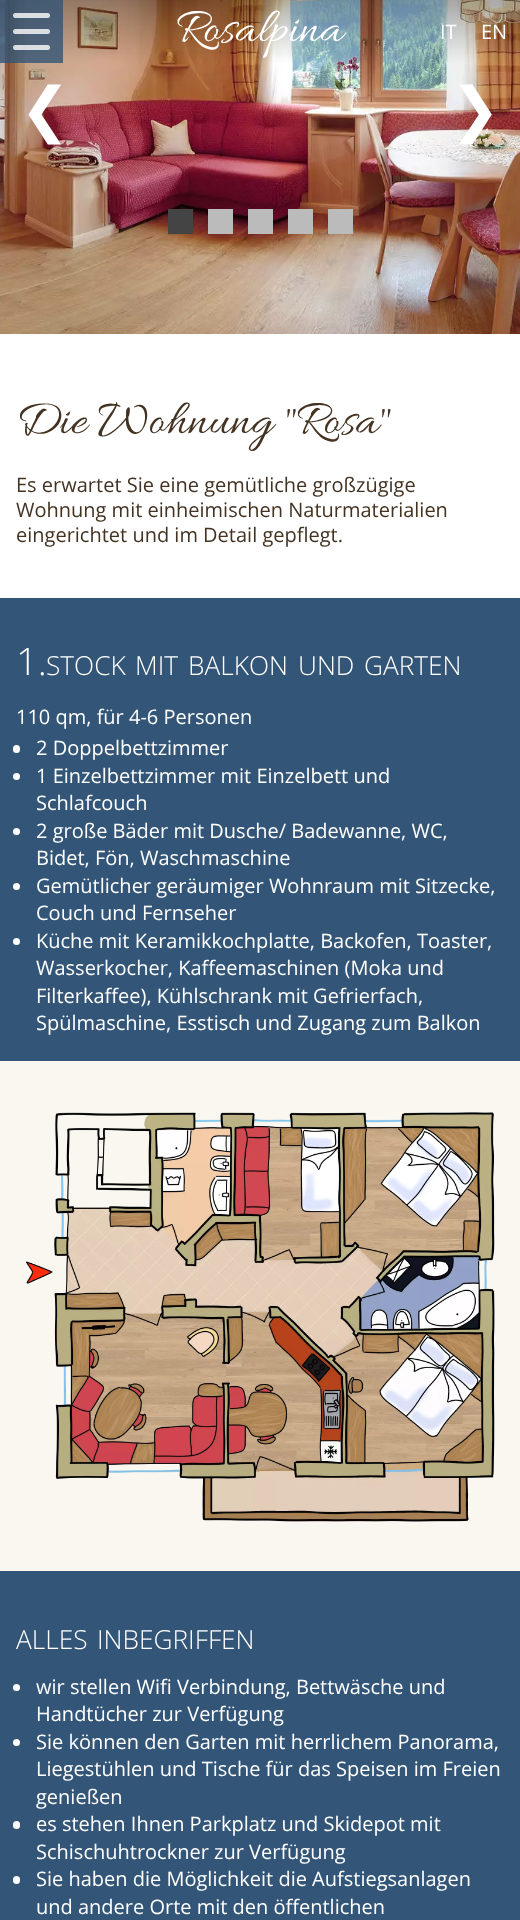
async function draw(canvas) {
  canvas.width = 520;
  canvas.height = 1920;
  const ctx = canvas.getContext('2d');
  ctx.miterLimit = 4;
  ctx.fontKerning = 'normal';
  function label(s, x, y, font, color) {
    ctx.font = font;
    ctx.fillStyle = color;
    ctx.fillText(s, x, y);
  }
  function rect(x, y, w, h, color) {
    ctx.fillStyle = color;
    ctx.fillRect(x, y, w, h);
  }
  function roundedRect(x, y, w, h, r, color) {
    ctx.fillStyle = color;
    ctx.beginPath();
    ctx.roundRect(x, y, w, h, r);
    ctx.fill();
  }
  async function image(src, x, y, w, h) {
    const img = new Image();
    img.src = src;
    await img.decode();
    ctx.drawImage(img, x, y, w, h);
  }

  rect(0, 0, 520, 1920, '#fff');
  await image('assets/img1.png', 0, 0, 520, 334);
  rect(0, 0, 63, 63, '#335577cc');
  roundedRect(13, 13, 37, 5, 2.5, '#ffffffcc');
  roundedRect(13, 29, 37, 5, 2.5, '#ffffffcc');
  roundedRect(13, 45, 37, 5, 2.5, '#ffffffcc');
  label('Rosalpina', 176, 40, '50px Allura', '#fff');
  label('IT', 440, 39, '20px Open Sans', '#fff');
  label('EN', 481, 39, '20px Open Sans', '#fff');
  label('❮', 20, 130, '60px DejaVu Sans', '#fff');
  label('❯', 450, 130, '60px DejaVu Sans', '#fff');
  rect(168, 209, 25, 25, '#444');
  rect(208, 209, 25, 25, '#bbb');
  rect(248, 209, 25, 25, '#bbb');
  rect(288, 209, 25, 25, '#bbb');
  rect(328, 209, 25, 25, '#bbb');
  label('Die Wohnung "Rosa"', 16, 432, '50px Allura', '#432');
  label('Es erwartet Sie eine gemütliche großzügige', 16, 492, '20px Open Sans', '#432');
  label('Wohnung mit einheimischen Naturmaterialien', 16, 517, '20px Open Sans', '#432');
  label('eingerichtet und im Detail gepflegt.', 16, 542, '20px Open Sans', '#432');
  rect(0, 598, 520, 463, '#357');
  label('1.', 16, 675, '300 38px Open Sans', '#fff');
  label('STOCK', 46, 675, '300 26.25px Open Sans', '#fff');
  label('MIT', 135, 675, '300 26.25px Open Sans', '#fff');
  label('BALKON', 188, 675, '300 26.25px Open Sans', '#fff');
  label('UND', 298, 675, '300 26.25px Open Sans', '#fff');
  label('GARTEN', 364, 675, '300 26.25px Open Sans', '#fff');
  label('110 qm, für 4-6 Personen', 16, 724, '20px Open Sans', '#fff');
  roundedRect(13, 745, 7, 8, 3.5, '#fff');
  label('2 Doppelbettzimmer', 36, 755, '20px Open Sans', '#fff');
  ctx.beginPath();
  ctx.arc(16.5, 776.5, 3.5, 0, 2 * Math.PI);
  ctx.fill();
  label('1 Einzelbettzimmer mit Einzelbett und', 36, 783, '20px Open Sans', '#fff');
  label('Schlafcouch', 36, 810, '20px Open Sans', '#fff');
  ctx.beginPath();
  ctx.arc(16.5, 831.5, 3.5, 0, 2 * Math.PI);
  ctx.fill();
  label('2 große Bäder mit Dusche/ Badewanne, WC,', 36, 838, '20px Open Sans', '#fff');
  label('Bidet, Fön, Waschmaschine', 36, 865, '20px Open Sans', '#fff');
  ctx.beginPath();
  ctx.arc(16.5, 886.5, 3.5, 0, 2 * Math.PI);
  ctx.fill();
  label('Gemütlicher geräumiger Wohnraum mit Sitzecke,', 36, 893, '20px Open Sans', '#fff');
  label('Couch und Fernseher', 36, 920, '20px Open Sans', '#fff');
  ctx.beginPath();
  ctx.arc(16.5, 941.5, 3.5, 0, 2 * Math.PI);
  ctx.fill();
  label('Küche mit Keramikkochplatte, Backofen, Toaster,', 36, 948, '20px Open Sans', '#fff');
  label('Wasserkocher, Kaffeemaschinen (Moka und', 36, 975, '20px Open Sans', '#fff');
  label('Filterkaffee), Kühlschrank mit Gefrierfach,', 36, 1003, '20px Open Sans', '#fff');
  label('Spülmaschine, Esstisch und Zugang zum Balkon', 36, 1030, '20px Open Sans', '#fff');
  rect(0, 1061, 520, 510, '#f9f7f0');
  await image('assets/img2.png', 26, 1112, 469, 410);
  rect(0, 1571, 520, 349, '#357');
  label('ALLES', 16, 1649, '300 26.25px Open Sans', '#fff');
  label('INBEGRIFFEN', 97, 1649, '300 26.25px Open Sans', '#fff');
  ctx.beginPath();
  ctx.arc(16.5, 1687.5, 3.5, 0, 2 * Math.PI);
  ctx.fill();
  label('wir stellen Wifi Verbindung, Bettwäsche und', 36, 1694, '20px Open Sans', '#fff');
  label('Handtücher zur Verfügung', 36, 1721, '20px Open Sans', '#fff');
  ctx.beginPath();
  ctx.arc(16.5, 1742.5, 3.5, 0, 2 * Math.PI);
  ctx.fill();
  label('Sie können den Garten mit herrlichem Panorama,', 36, 1749, '20px Open Sans', '#fff');
  label('Liegestühlen und Tische für das Speisen im Freien', 36, 1776, '20px Open Sans', '#fff');
  label('genießen', 36, 1804, '20px Open Sans', '#fff');
  roundedRect(13, 1821, 7, 8, 3.5, '#fff');
  label('es stehen Ihnen Parkplatz und Skidepot mit', 36, 1831, '20px Open Sans', '#fff');
  label('Schischuhtrockner zur Verfügung', 36, 1859, '20px Open Sans', '#fff');
  roundedRect(13, 1876, 7, 8, 3.5, '#fff');
  label('Sie haben die Möglichkeit die Aufstiegsanlagen', 36, 1886, '20px Open Sans', '#fff');
  label('und andere Orte mit den öffentlichen', 36, 1914, '20px Open Sans', '#fff');
}

draw(document.querySelector('canvas'));
